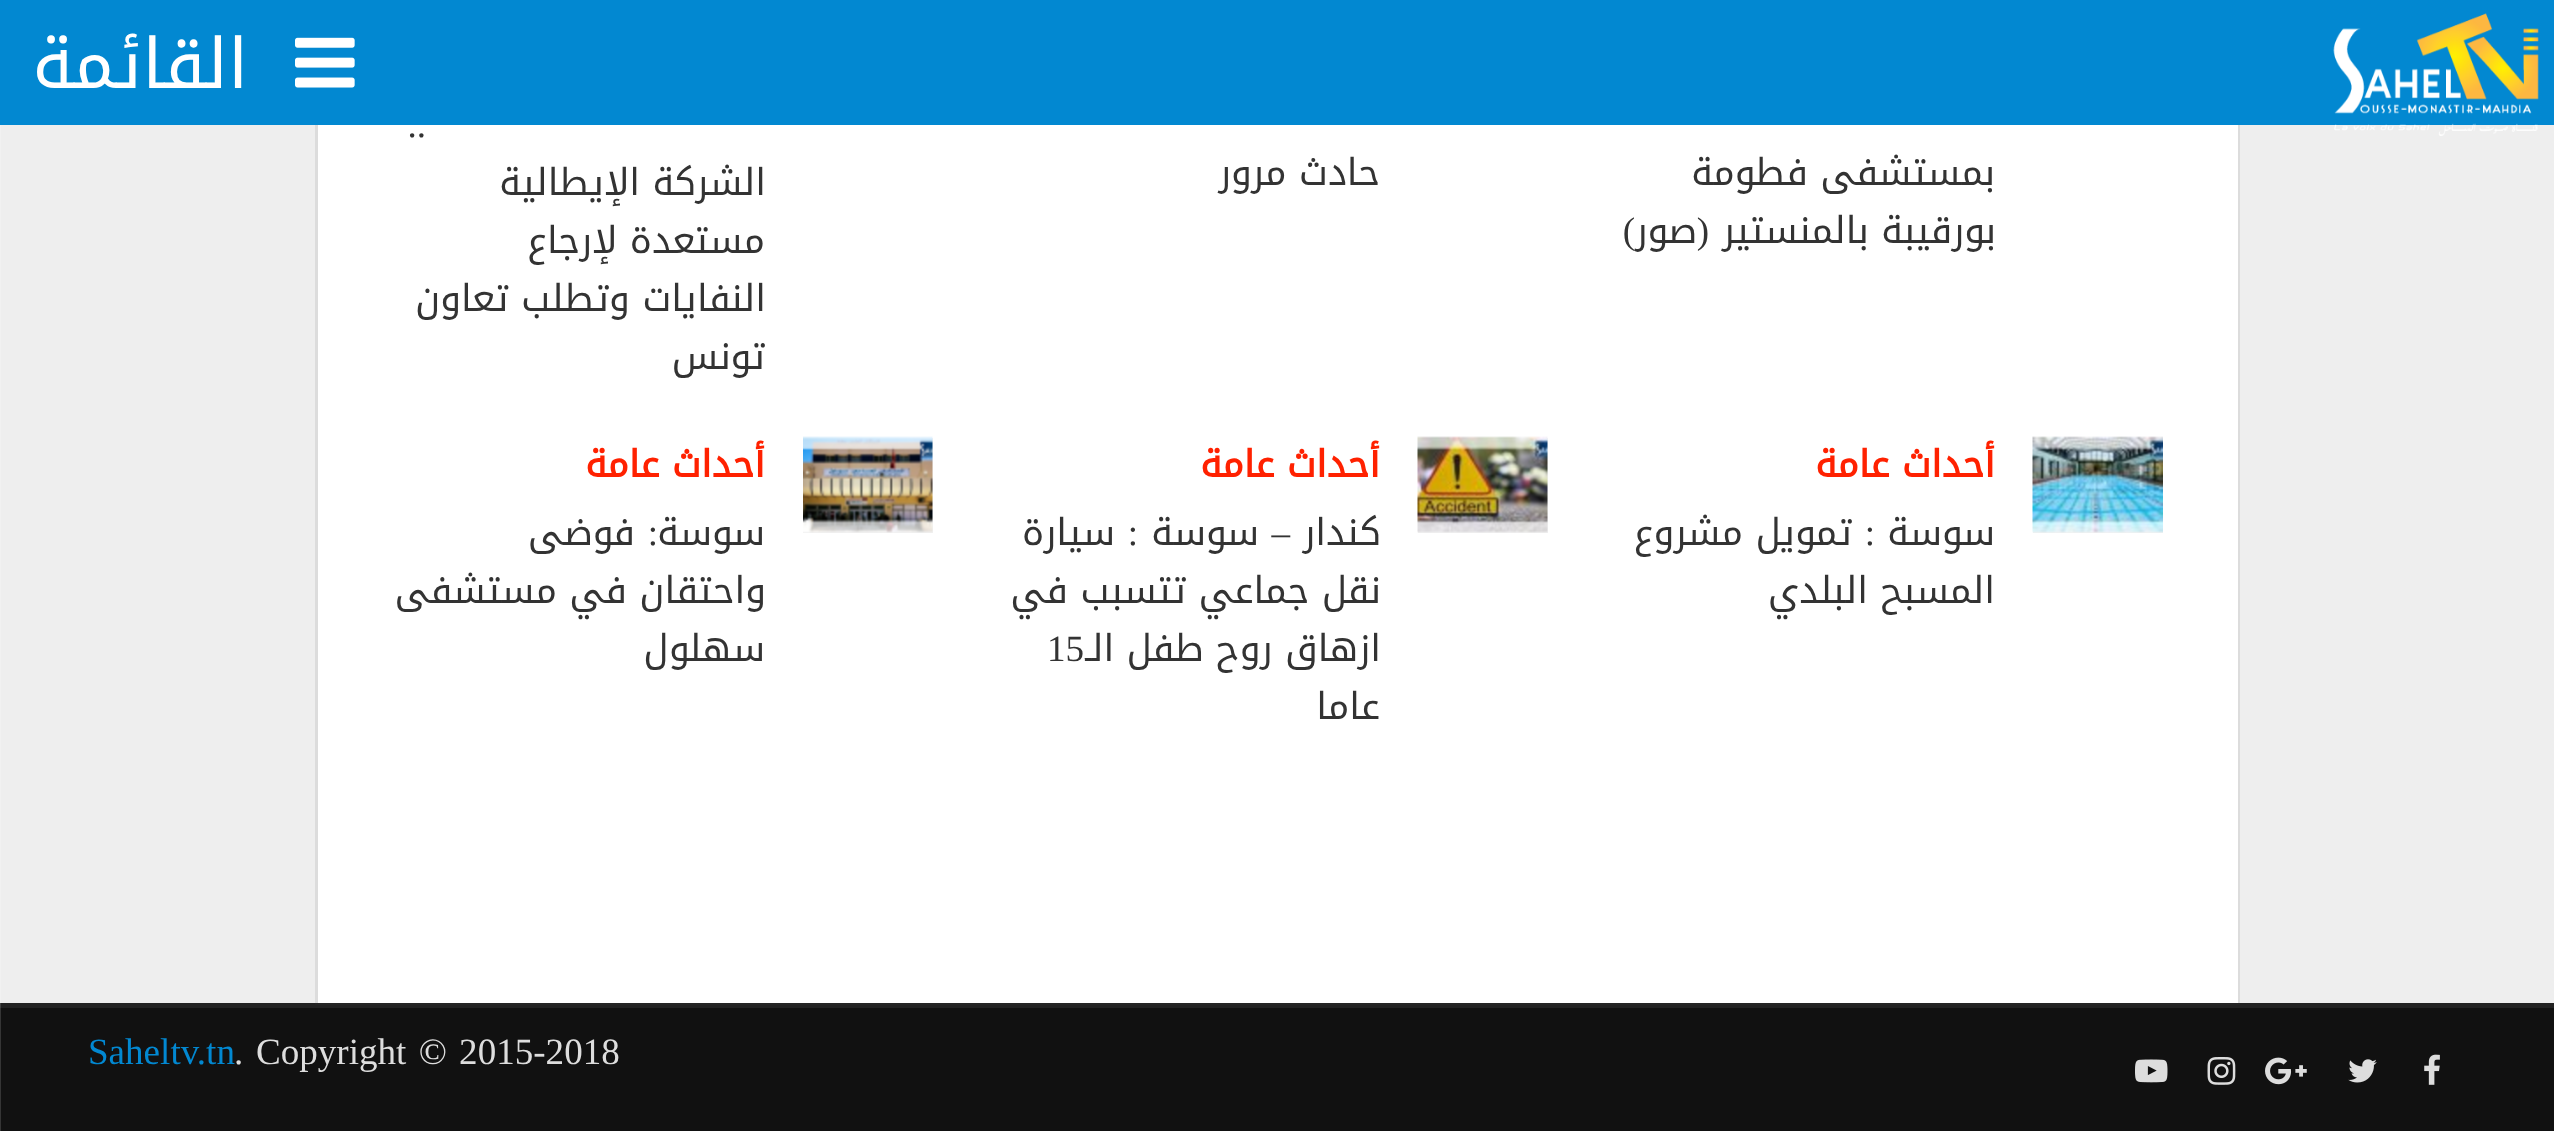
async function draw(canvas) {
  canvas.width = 2554;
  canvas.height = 1131;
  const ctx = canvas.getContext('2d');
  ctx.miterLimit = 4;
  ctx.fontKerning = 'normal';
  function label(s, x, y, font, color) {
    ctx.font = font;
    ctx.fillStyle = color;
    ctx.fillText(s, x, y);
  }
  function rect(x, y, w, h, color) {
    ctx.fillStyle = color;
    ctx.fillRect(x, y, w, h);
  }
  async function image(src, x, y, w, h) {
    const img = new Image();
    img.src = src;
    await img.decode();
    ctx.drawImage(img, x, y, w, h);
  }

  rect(0, 0, 2554, 1131, '#eee');
  rect(0, 125, 1, 878, '#f1f1f1');
  rect(1, 1003, 2553, 5, '#222');
  ctx.strokeStyle = '#4444441a';
  ctx.lineWidth = 3;
  ctx.strokeRect(316.5, -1.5, 1922, 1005);
  rect(0, 0, 2554, 125, '#0288d1');
  await image('assets/img1.png', 2333, 13, 206, 123);
  await image('assets/img2.png', 295, 37, 60, 51);
  ctx.direction = 'rtl';
  label('القائمة', 248, 88, '69.5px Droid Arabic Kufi', '#fff');
  rect(318, 125, 1920, 878, '#fff');
  label('بمستشفى فطومة', 1995, 185, '37.1px Droid Arabic Kufi', '#333');
  label('بورقيبة بالمنستير', 1996, 243, '37.1px Droid Arabic Kufi', '#333');
  label('(', 1709, 243, '37.1px Liberation Serif', '#333');
  label(')', 1635, 243, '37.1px Liberation Serif', '#333');
  label('صور', 1697, 243, '37.1px Droid Arabic Kufi', '#333');
  label('حادث مرور', 1380, 185, '37.1px Droid Arabic Kufi', '#333');
  label('..', 426, 137, '37.1px Liberation Serif', '#333');
  label('الشركة الإيطالية', 766, 195, '37.1px Droid Arabic Kufi', '#333');
  label('مستعدة لإرجاع', 765, 253, '37.1px Droid Arabic Kufi', '#333');
  label('النفايات وتطلب تعاون', 766, 311, '37.1px Droid Arabic Kufi', '#333');
  label('تونس', 765, 369, '37.1px Droid Arabic Kufi', '#333');
  rect(2033, 531, 130, 2, '#f2f2f2');
  await image('assets/img3.png', 2032, 436, 131, 97);
  label('أحداث عامة', 1995, 477, 'bold 37.1px Droid Arabic Kufi', '#ff2100');
  label('سوسة', 1995, 545, '37.1px Droid Arabic Kufi', '#333');
  label(':', 1875, 545, '37.1px Liberation Serif', '#333');
  label('تمويل مشروع', 1852, 545, '37.1px Droid Arabic Kufi', '#333');
  label('المسبح البلدي', 1995, 603, '37.1px Droid Arabic Kufi', '#333');
  rect(1418, 438, 130, 95, '#f2f2f2');
  await image('assets/img4.png', 1417, 436, 131, 97);
  label('أحداث عامة', 1380, 477, 'bold 37.1px Droid Arabic Kufi', '#ff2100');
  label('كندار', 1381, 545, '37.1px Droid Arabic Kufi', '#333');
  label('–', 1290, 545, '37.1px Liberation Serif', '#333');
  label('سوسة', 1259, 545, '37.1px Droid Arabic Kufi', '#333');
  label(':', 1138, 545, '37.1px Liberation Serif', '#333');
  label('سيارة', 1115, 545, '37.1px Droid Arabic Kufi', '#333');
  label('نقل جماعي تتسبب في', 1381, 603, '37.1px Droid Arabic Kufi', '#333');
  label('ازهاق روح طفل الـ', 1381, 661, '37.1px Droid Arabic Kufi', '#333');
  ctx.direction = 'ltr';
  label('15', 1047, 661, '37.1px Liberation Serif', '#333');
  ctx.direction = 'rtl';
  label('عاما', 1380, 719, '37.1px Droid Arabic Kufi', '#333');
  rect(803, 438, 130, 95, '#f2f2f2');
  await image('assets/img5.png', 803, 436, 130, 97);
  label('أحداث عامة', 765, 477, 'bold 37.1px Droid Arabic Kufi', '#ff2100');
  label('سوسة', 765, 545, '37.1px Droid Arabic Kufi', '#333');
  label(':', 658, 545, '37.1px Liberation Serif', '#333');
  label('فوضى', 635, 545, '37.1px Droid Arabic Kufi', '#333');
  label('واحتقان في مستشفى', 766, 603, '37.1px Droid Arabic Kufi', '#333');
  label('سهلول', 765, 661, '37.1px Droid Arabic Kufi', '#333');
  rect(0, 1003, 1, 5, '#434343');
  rect(1, 1008, 2553, 123, '#111');
  rect(0, 1008, 1, 123, '#353535');
  await image('assets/img6.png', 2424, 1054, 16, 31);
  await image('assets/img7.png', 2348, 1059, 29, 24);
  await image('assets/img8.png', 2265, 1057, 42, 28);
  await image('assets/img9.png', 2207, 1057, 29, 28);
  await image('assets/img10.png', 2135, 1059, 33, 24);
  ctx.wordSpacing = '3px';
  ctx.direction = 'ltr';
  label('Copyright © 2015-2018', 256, 1064, '37.1px Liberation Serif', '#ddd');
  ctx.wordSpacing = '0px';
  label('.', 234, 1064, '37.1px Liberation Serif', '#ddd');
  label('Saheltv.tn', 88, 1064, '37.1px Liberation Serif', '#0288d1');
}

draw(document.querySelector('canvas'));
